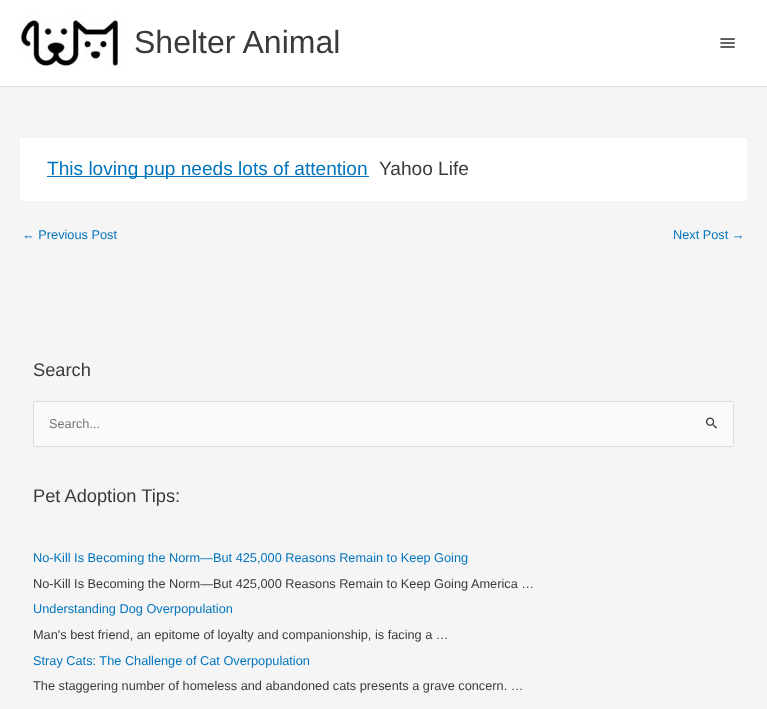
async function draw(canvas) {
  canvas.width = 767;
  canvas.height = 709;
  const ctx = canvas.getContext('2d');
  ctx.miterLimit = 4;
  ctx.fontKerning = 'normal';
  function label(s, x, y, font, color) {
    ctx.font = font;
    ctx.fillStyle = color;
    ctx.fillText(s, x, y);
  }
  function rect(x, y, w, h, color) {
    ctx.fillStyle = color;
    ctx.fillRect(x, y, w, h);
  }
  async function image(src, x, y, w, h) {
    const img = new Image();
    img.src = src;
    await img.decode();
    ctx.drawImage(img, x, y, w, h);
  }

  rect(0, 0, 767, 709, '#f5f5f5');
  rect(0, 0, 767, 86, '#fff');
  rect(0, 86, 767, 1, '#ddd');
  await image('assets/img1.png', 20, 13, 101, 56);
  label('Shelter Animal', 134, 53, '32px Liberation Sans', '#3a3a3a');
  await image('assets/img2.png', 720, 38, 15, 10);
  rect(20, 138, 727, 63, '#fff');
  rect(47, 176, 322, 1, '#0274be');
  label('This loving pup needs lots of attention', 47, 175, '19.1px Liberation Sans', '#0274be');
  label('Yahoo Life', 379, 175, '19.1px Liberation Sans', '#3a3a3a');
  label('← Previous Post', 22, 239, '12.75px Liberation Sans', '#0274be');
  label('Next Post →', 673, 239, '12.75px Liberation Sans', '#0274be');
  label('Search', 33, 376, '18.25px Liberation Sans', '#3a3a3a');
  ctx.fillStyle = '#fafafa';
  ctx.beginPath();
  ctx.roundRect(33.5, 401.5, 700, 45, 1.5);
  ctx.fill();
  ctx.strokeStyle = '#ddd';
  ctx.stroke();
  label('Search...', 49, 428, '12.75px Liberation Sans', '#757575');
  await image('assets/img3.png', 705, 417, 12, 12);
  label('Pet Adoption Tips:', 33, 502, '18.25px Liberation Sans', '#3a3a3a');
  label('No-Kill Is Becoming the Norm—But 425,000 Reasons Remain to Keep Going', 33, 562, '12.75px Liberation Sans', '#0274be');
  label('No-Kill Is Becoming the Norm—But 425,000 Reasons Remain to Keep Going America …', 33, 588, '12.75px Liberation Sans', '#3a3a3a');
  label('Understanding Dog Overpopulation', 33, 613, '12.75px Liberation Sans', '#0274be');
  label('Man\'s best friend, an epitome of loyalty and companionship, is facing a …', 33, 639, '12.75px Liberation Sans', '#3a3a3a');
  label('Stray Cats: The Challenge of Cat Overpopulation', 33, 665, '12.75px Liberation Sans', '#0274be');
  label('The staggering number of homeless and abandoned cats presents a grave concern. …', 33, 690, '12.75px Liberation Sans', '#3a3a3a');
}

draw(document.querySelector('canvas'));
